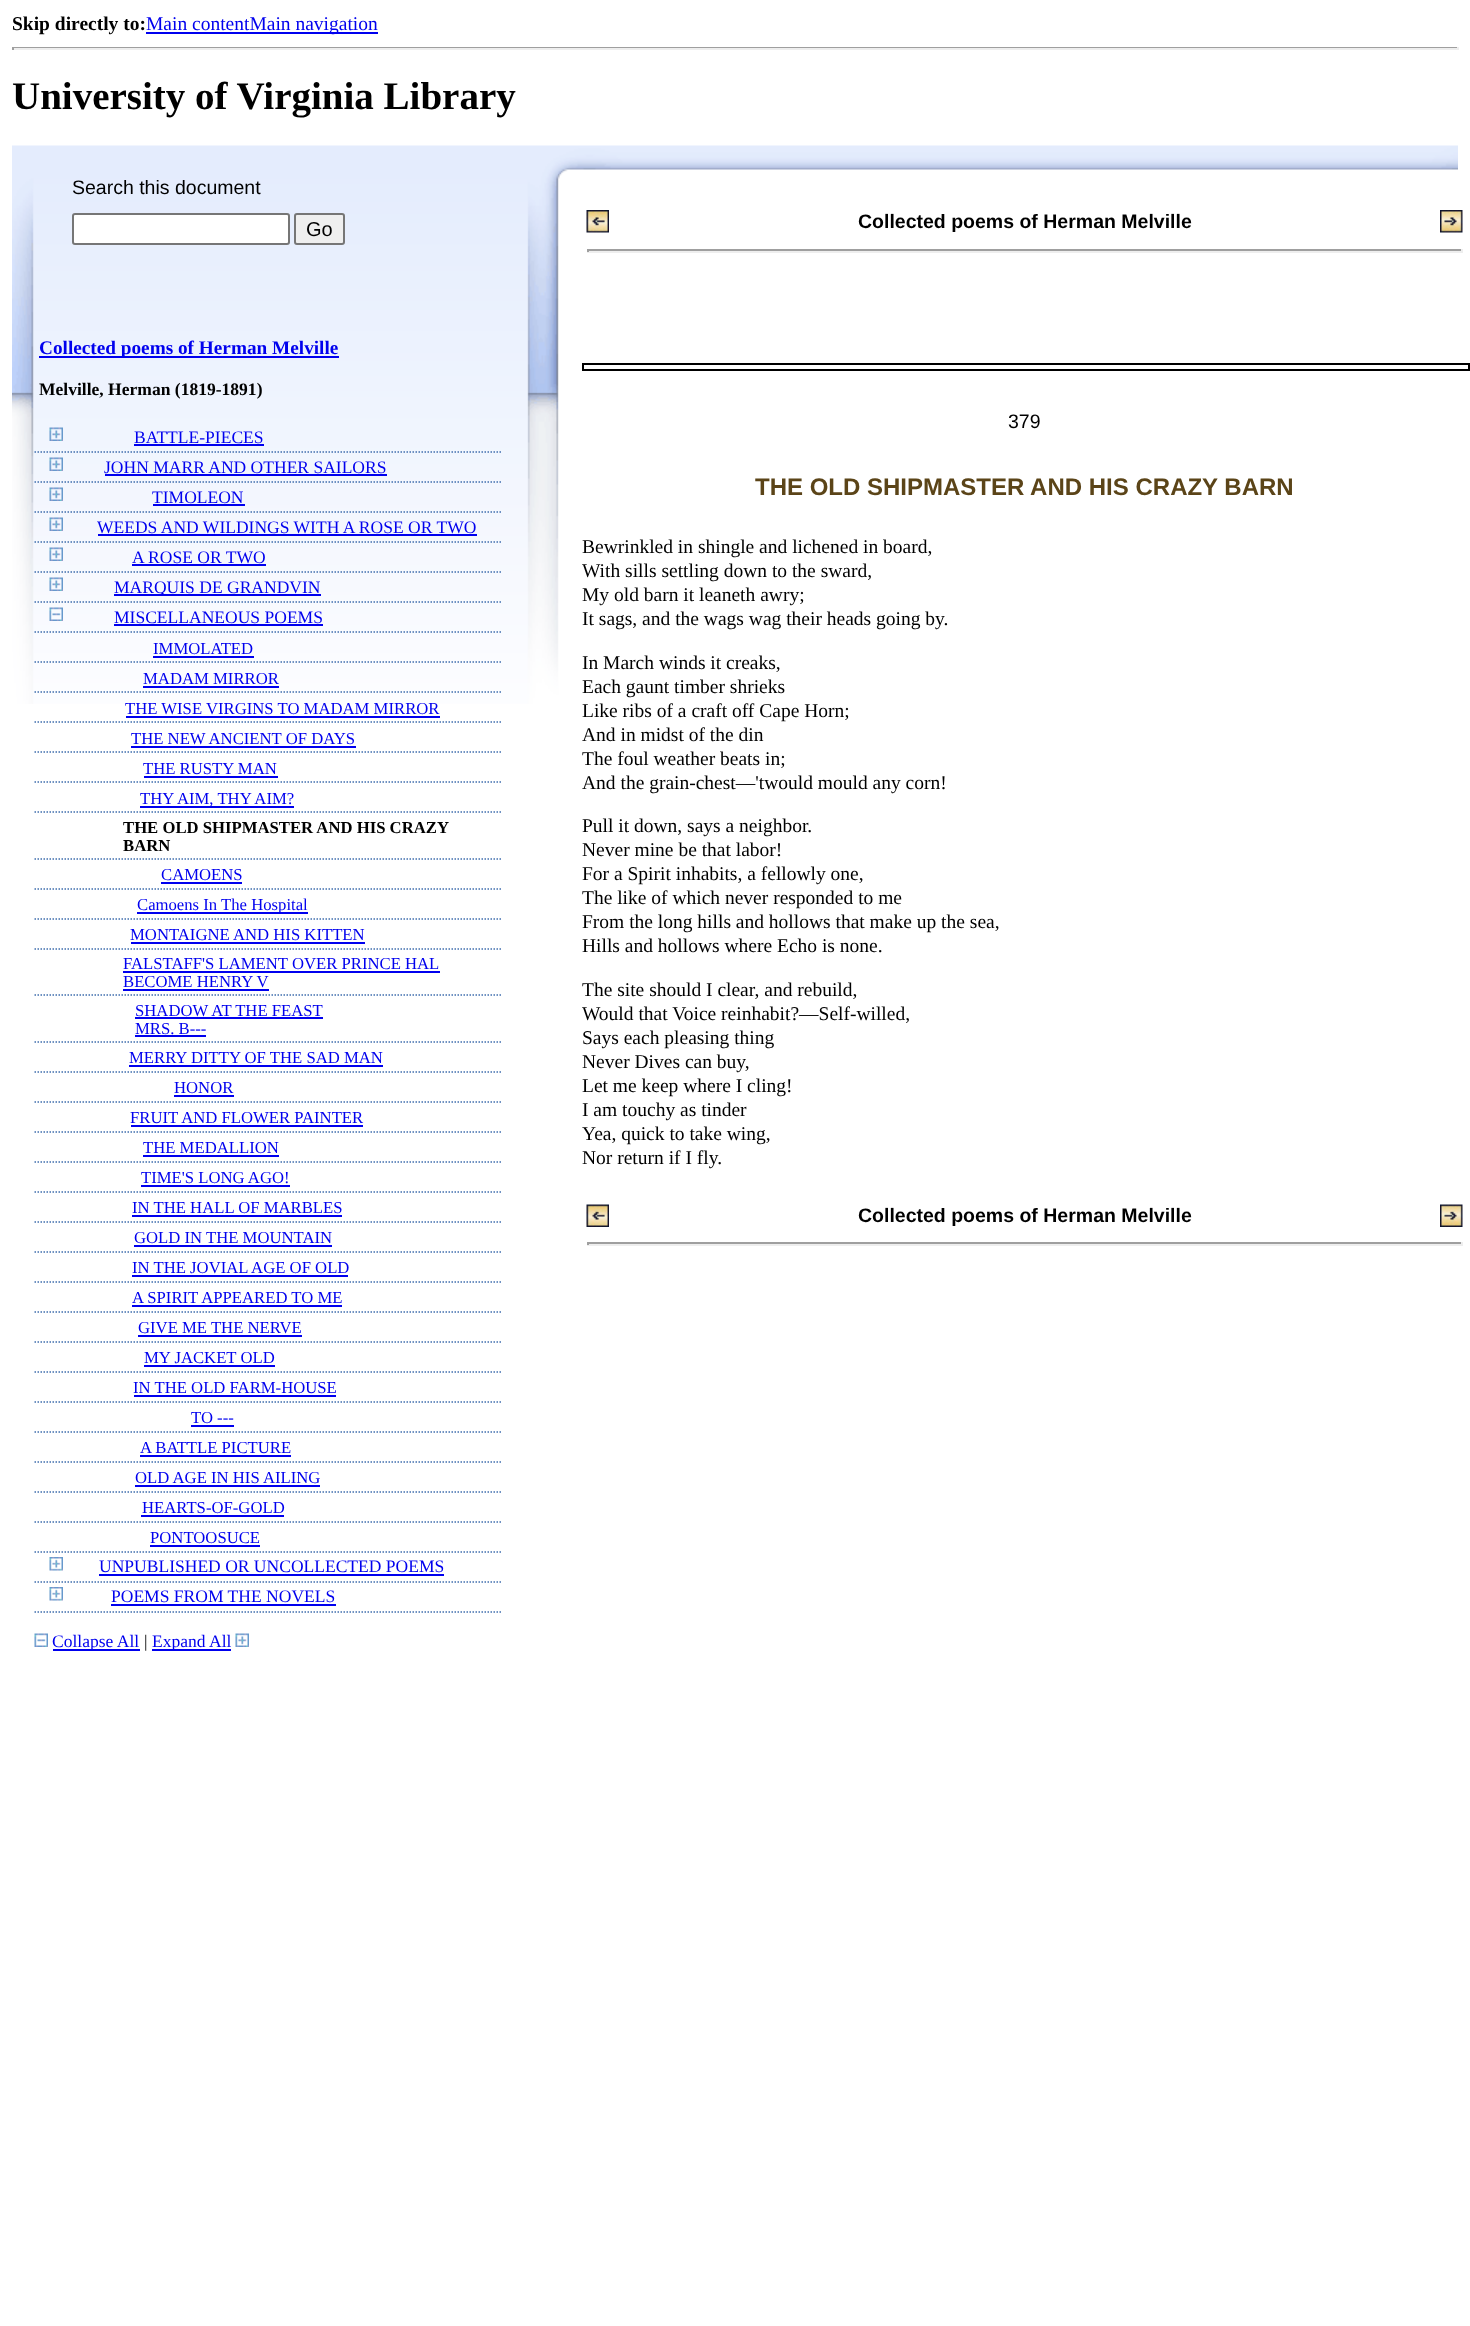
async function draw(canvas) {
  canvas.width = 1470;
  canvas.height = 2326;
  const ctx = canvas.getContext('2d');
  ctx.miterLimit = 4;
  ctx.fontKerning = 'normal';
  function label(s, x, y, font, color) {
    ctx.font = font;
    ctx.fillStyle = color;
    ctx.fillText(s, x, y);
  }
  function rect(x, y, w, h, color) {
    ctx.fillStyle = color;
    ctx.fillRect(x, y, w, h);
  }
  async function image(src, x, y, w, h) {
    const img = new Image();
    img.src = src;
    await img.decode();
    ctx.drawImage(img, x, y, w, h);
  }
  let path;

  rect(0, 0, 1470, 2326, '#fff');
  label('Skip directly to:', 12, 30, 'bold 19.5px Liberation Serif', '#000');
  rect(146, 32, 232, 2, '#00e');
  label('Main contentMain navigation', 146, 30, '19.5px Liberation Serif', '#00e');
  rect(12, 47, 1446, 1, '#9f9f9f');
  rect(1457, 47, 2, 3, '#eee');
  rect(12, 48, 1446, 2, '#eee');
  rect(12, 47, 2, 3, '#9f9f9f');
  label('University of Virginia Library', 12, 109, 'bold 39px Liberation Serif', '#000');
  await image('assets/img1.png', 12, 145, 1446, 559);
  label('Search this document', 72, 194, '19.5px Liberation Sans', '#000');
  ctx.fillStyle = '#fff';
  ctx.beginPath();
  ctx.roundRect(73, 214, 216, 30, 2);
  ctx.fill();
  ctx.strokeStyle = '#767676';
  ctx.lineWidth = 2;
  ctx.stroke();
  ctx.fillStyle = '#efefef';
  ctx.beginPath();
  ctx.roundRect(295, 214, 49, 30, 2);
  ctx.fill();
  ctx.stroke();
  label('Go', 306, 236, '20px Liberation Sans', '#000');
  rect(39, 356, 300, 2, '#00e');
  label('Collected poems of Herman Melville', 39, 354, 'bold 19.25px Liberation Serif', '#00e');
  label('Melville, Herman (1819-1891)', 39, 395, 'bold 17.55px Liberation Serif', '#000');
  path = new Path2D('M34.5 452H501');
  ctx.strokeStyle = '#3f6dad';
  ctx.lineWidth = 1.5;
  ctx.setLineDash([1.5, 1.5]);
  ctx.stroke(path);
  await image('assets/img2.png', 49, 427, 14, 14);
  label('BATTLE-PIECES', 134, 443, '17.55px Liberation Serif', '#00e');
  rect(134, 444, 130, 2, '#00e');
  path = new Path2D('M34.5 482H501');
  ctx.stroke(path);
  await image('assets/img3.png', 49, 457, 14, 14);
  label('JOHN MARR AND OTHER SAILORS', 104, 473, '17.55px Liberation Serif', '#00e');
  rect(105, 474, 282, 2, '#00e');
  path = new Path2D('M34.5 512H501');
  ctx.stroke(path);
  await image('assets/img4.png', 49, 487, 14, 14);
  label('TIMOLEON', 152, 503, '17.55px Liberation Serif', '#00e');
  rect(153, 504, 92, 2, '#00e');
  path = new Path2D('M34.5 542H501');
  ctx.stroke(path);
  await image('assets/img5.png', 49, 517, 14, 14);
  label('WEEDS AND WILDINGS WITH A ROSE OR TWO', 97, 533, '17.55px Liberation Serif', '#00e');
  rect(98, 534, 379, 2, '#00e');
  path = new Path2D('M34.5 572H501');
  ctx.stroke(path);
  await image('assets/img6.png', 49, 547, 14, 14);
  label('A ROSE OR TWO', 132, 563, '17.55px Liberation Serif', '#00e');
  rect(132, 564, 134, 2, '#00e');
  path = new Path2D('M34.5 602H501');
  ctx.stroke(path);
  await image('assets/img7.png', 49, 577, 14, 14);
  rect(114, 594, 207, 2, '#00e');
  label('MARQUIS DE GRANDVIN', 114, 593, '17.55px Liberation Serif', '#00e');
  path = new Path2D('M34.5 632H501');
  ctx.stroke(path);
  await image('assets/img8.png', 49, 607, 14, 14);
  label('MISCELLANEOUS POEMS', 114, 623, '17.55px Liberation Serif', '#00e');
  rect(114, 624, 209, 2, '#00e');
  path = new Path2D('M34.5 662H501');
  ctx.stroke(path);
  label('IMMOLATED', 153, 654, '16.7px Liberation Serif', '#00e');
  rect(153, 656, 101, 2, '#00e');
  path = new Path2D('M34.5 692H501');
  ctx.stroke(path);
  label('MADAM MIRROR', 143, 684, '16.7px Liberation Serif', '#00e');
  rect(143, 686, 136, 2, '#00e');
  path = new Path2D('M34.5 722H501');
  ctx.stroke(path);
  label('THE WISE VIRGINS TO MADAM MIRROR', 125, 714, '16.7px Liberation Serif', '#00e');
  rect(126, 716, 314, 2, '#00e');
  path = new Path2D('M34.5 752H501');
  ctx.stroke(path);
  label('THE NEW ANCIENT OF DAYS', 131, 744, '16.7px Liberation Serif', '#00e');
  rect(131, 746, 225, 2, '#00e');
  path = new Path2D('M34.5 782H501');
  ctx.stroke(path);
  label('THE RUSTY MAN', 143, 774, '16.7px Liberation Serif', '#00e');
  rect(144, 776, 134, 2, '#00e');
  path = new Path2D('M34.5 812H501');
  ctx.stroke(path);
  rect(140, 806, 154, 2, '#00e');
  label('THY AIM, THY AIM?', 140, 804, '16.7px Liberation Serif', '#00e');
  path = new Path2D('M34.5 859H501');
  ctx.stroke(path);
  label('THE OLD SHIPMASTER AND HIS CRAZY', 123, 833, 'bold 16.7px Liberation Serif', '#000');
  label('BARN', 123, 851, 'bold 16.7px Liberation Serif', '#000');
  path = new Path2D('M34.5 889H501');
  ctx.stroke(path);
  label('CAMOENS', 161, 880, '16.7px Liberation Serif', '#00e');
  rect(161, 882, 81, 2, '#00e');
  path = new Path2D('M34.5 919H501');
  ctx.stroke(path);
  rect(137, 912, 171, 2, '#00e');
  label('Camoens In The Hospital', 137, 910, '16.7px Liberation Serif', '#00e');
  path = new Path2D('M34.5 949H501');
  ctx.stroke(path);
  label('MONTAIGNE AND HIS KITTEN', 130, 940, '16.7px Liberation Serif', '#00e');
  rect(131, 942, 234, 2, '#00e');
  path = new Path2D('M34.5 995H501');
  ctx.stroke(path);
  label('FALSTAFF\'S LAMENT OVER PRINCE HAL', 123, 969, '16.7px Liberation Serif', '#00e');
  rect(123, 971, 317, 2, '#00e');
  label('BECOME HENRY V', 123, 987, '16.7px Liberation Serif', '#00e');
  rect(123, 989, 146, 2, '#00e');
  path = new Path2D('M34.5 1042H501');
  ctx.stroke(path);
  label('SHADOW AT THE FEAST', 135, 1016, '16.7px Liberation Serif', '#00e');
  rect(135, 1017, 188, 2, '#00e');
  label('MRS. B---', 135, 1034, '16.7px Liberation Serif', '#00e');
  rect(135, 1035, 71, 2, '#00e');
  path = new Path2D('M34.5 1072H501');
  ctx.stroke(path);
  label('MERRY DITTY OF THE SAD MAN', 129, 1063, '16.7px Liberation Serif', '#00e');
  rect(129, 1065, 254, 2, '#00e');
  path = new Path2D('M34.5 1102H501');
  ctx.stroke(path);
  label('HONOR', 174, 1093, '16.7px Liberation Serif', '#00e');
  rect(174, 1095, 60, 2, '#00e');
  path = new Path2D('M34.5 1132H501');
  ctx.stroke(path);
  label('FRUIT AND FLOWER PAINTER', 130, 1123, '16.7px Liberation Serif', '#00e');
  rect(131, 1125, 232, 2, '#00e');
  path = new Path2D('M34.5 1162H501');
  ctx.stroke(path);
  label('THE MEDALLION', 143, 1153, '16.7px Liberation Serif', '#00e');
  rect(143, 1155, 136, 2, '#00e');
  path = new Path2D('M34.5 1192H501');
  ctx.stroke(path);
  label('TIME\'S LONG AGO!', 141, 1183, '16.7px Liberation Serif', '#00e');
  rect(141, 1185, 149, 2, '#00e');
  path = new Path2D('M34.5 1222H501');
  ctx.stroke(path);
  label('IN THE HALL OF MARBLES', 132, 1213, '16.7px Liberation Serif', '#00e');
  rect(132, 1215, 210, 2, '#00e');
  path = new Path2D('M34.5 1252H501');
  ctx.stroke(path);
  label('GOLD IN THE MOUNTAIN', 134, 1243, '16.7px Liberation Serif', '#00e');
  rect(134, 1245, 198, 2, '#00e');
  path = new Path2D('M34.5 1282H501');
  ctx.stroke(path);
  label('IN THE JOVIAL AGE OF OLD', 132, 1273, '16.7px Liberation Serif', '#00e');
  rect(132, 1275, 216, 2, '#00e');
  path = new Path2D('M34.5 1312H501');
  ctx.stroke(path);
  label('A SPIRIT APPEARED TO ME', 132, 1303, '16.7px Liberation Serif', '#00e');
  rect(132, 1305, 210, 2, '#00e');
  path = new Path2D('M34.5 1342H501');
  ctx.stroke(path);
  label('GIVE ME THE NERVE', 138, 1333, '16.7px Liberation Serif', '#00e');
  rect(138, 1335, 164, 2, '#00e');
  path = new Path2D('M34.5 1372H501');
  ctx.stroke(path);
  label('MY JACKET OLD', 144, 1363, '16.7px Liberation Serif', '#00e');
  rect(144, 1365, 131, 2, '#00e');
  path = new Path2D('M34.5 1402H501');
  ctx.stroke(path);
  label('IN THE OLD FARM-HOUSE', 133, 1393, '16.7px Liberation Serif', '#00e');
  rect(134, 1395, 202, 2, '#00e');
  path = new Path2D('M34.5 1432H501');
  ctx.stroke(path);
  label('TO ---', 191, 1423, '16.7px Liberation Serif', '#00e');
  rect(191, 1425, 43, 2, '#00e');
  path = new Path2D('M34.5 1462H501');
  ctx.stroke(path);
  label('A BATTLE PICTURE', 140, 1453, '16.7px Liberation Serif', '#00e');
  rect(140, 1455, 151, 2, '#00e');
  path = new Path2D('M34.5 1492H501');
  ctx.stroke(path);
  label('OLD AGE IN HIS AILING', 135, 1483, '16.7px Liberation Serif', '#00e');
  rect(135, 1485, 185, 2, '#00e');
  path = new Path2D('M34.5 1522H501');
  ctx.stroke(path);
  label('HEARTS-OF-GOLD', 142, 1513, '16.7px Liberation Serif', '#00e');
  rect(141, 1515, 143, 2, '#00e');
  path = new Path2D('M34.5 1552H501');
  ctx.stroke(path);
  label('PONTOOSUCE', 150, 1543, '16.7px Liberation Serif', '#00e');
  rect(150, 1545, 110, 2, '#00e');
  path = new Path2D('M34.5 1582H501');
  ctx.stroke(path);
  await image('assets/img9.png', 49, 1557, 14, 14);
  label('UNPUBLISHED OR UNCOLLECTED POEMS', 99, 1572, '17.55px Liberation Serif', '#00e');
  rect(99, 1574, 345, 2, '#00e');
  path = new Path2D('M34.5 1612H501');
  ctx.stroke(path);
  await image('assets/img9.png', 49, 1587, 14, 14);
  label('POEMS FROM THE NOVELS', 111, 1602, '17.55px Liberation Serif', '#00e');
  rect(111, 1604, 225, 2, '#00e');
  await image('assets/img10.png', 34, 1633, 14, 14);
  rect(53, 1649, 87, 2, '#00e');
  label('Collapse All', 52, 1647, '17.55px Liberation Serif', '#00e');
  label('|', 144, 1647, '17.55px Liberation Serif', '#000');
  rect(152, 1649, 79, 2, '#00e');
  label('Expand All', 152, 1647, '17.55px Liberation Serif', '#00e');
  await image('assets/img11.png', 235, 1633, 14, 14);
  await image('assets/img12.png', 586, 210, 23, 23);
  label('Collected poems of Herman Melville', 858, 228, 'bold 19.5px Liberation Sans', '#000');
  await image('assets/img13.png', 1440, 210, 23, 23);
  rect(587, 249, 876, 2, '#9f9f9f');
  rect(1461, 249, 2, 3, '#eee');
  rect(587, 251, 876, 2, '#eee');
  rect(587, 249, 2, 3, '#9f9f9f');
  ctx.strokeStyle = '#000';
  ctx.lineWidth = 2;
  ctx.setLineDash([]);
  ctx.strokeRect(583, 364, 886, 6);
  label('379', 1008, 428, '19.5px Liberation Sans', '#000');
  label('THE OLD SHIPMASTER AND HIS CRAZY BARN', 755, 495, 'bold 24px Liberation Sans', '#5b4418');
  label('Bewrinkled in shingle and lichened in board,', 582, 553, '19.5px Liberation Serif', '#000');
  label('With sills settling down to the sward,', 582, 577, '19.5px Liberation Serif', '#000');
  label('My old barn it leaneth awry;', 582, 601, '19.5px Liberation Serif', '#000');
  label('It sags, and the wags wag their heads going by.', 582, 625, '19.5px Liberation Serif', '#000');
  label('In March winds it creaks,', 582, 669, '19.5px Liberation Serif', '#000');
  label('Each gaunt timber shrieks', 582, 693, '19.5px Liberation Serif', '#000');
  label('Like ribs of a craft off Cape Horn;', 582, 717, '19.5px Liberation Serif', '#000');
  label('And in midst of the din', 582, 741, '19.5px Liberation Serif', '#000');
  label('The foul weather beats in;', 582, 765, '19.5px Liberation Serif', '#000');
  label('And the grain-chest—\'twould mould any corn!', 582, 789, '19.5px Liberation Serif', '#000');
  label('Pull it down, says a neighbor.', 582, 832, '19.5px Liberation Serif', '#000');
  label('Never mine be that labor!', 582, 856, '19.5px Liberation Serif', '#000');
  label('For a Spirit inhabits, a fellowly one,', 582, 880, '19.5px Liberation Serif', '#000');
  label('The like of which never responded to me', 582, 904, '19.5px Liberation Serif', '#000');
  label('From the long hills and hollows that make up the sea,', 582, 928, '19.5px Liberation Serif', '#000');
  label('Hills and hollows where Echo is none.', 582, 952, '19.5px Liberation Serif', '#000');
  label('The site should I clear, and rebuild,', 582, 996, '19.5px Liberation Serif', '#000');
  label('Would that Voice reinhabit?—Self-willed,', 582, 1020, '19.5px Liberation Serif', '#000');
  label('Says each pleasing thing', 582, 1044, '19.5px Liberation Serif', '#000');
  label('Never Dives can buy,', 582, 1068, '19.5px Liberation Serif', '#000');
  label('Let me keep where I cling!', 582, 1092, '19.5px Liberation Serif', '#000');
  label('I am touchy as tinder', 582, 1116, '19.5px Liberation Serif', '#000');
  label('Yea, quick to take wing,', 582, 1140, '19.5px Liberation Serif', '#000');
  label('Nor return if I fly.', 582, 1164, '19.5px Liberation Serif', '#000');
  await image('assets/img14.png', 586, 1204, 23, 23);
  label('Collected poems of Herman Melville', 858, 1222, 'bold 19.5px Liberation Sans', '#000');
  await image('assets/img15.png', 1440, 1204, 23, 23);
  rect(587, 1242, 876, 2, '#9f9f9f');
  rect(1461, 1242, 2, 3, '#eee');
  rect(587, 1244, 876, 2, '#eee');
  rect(587, 1242, 2, 3, '#9f9f9f');
}

draw(document.querySelector('canvas'));
